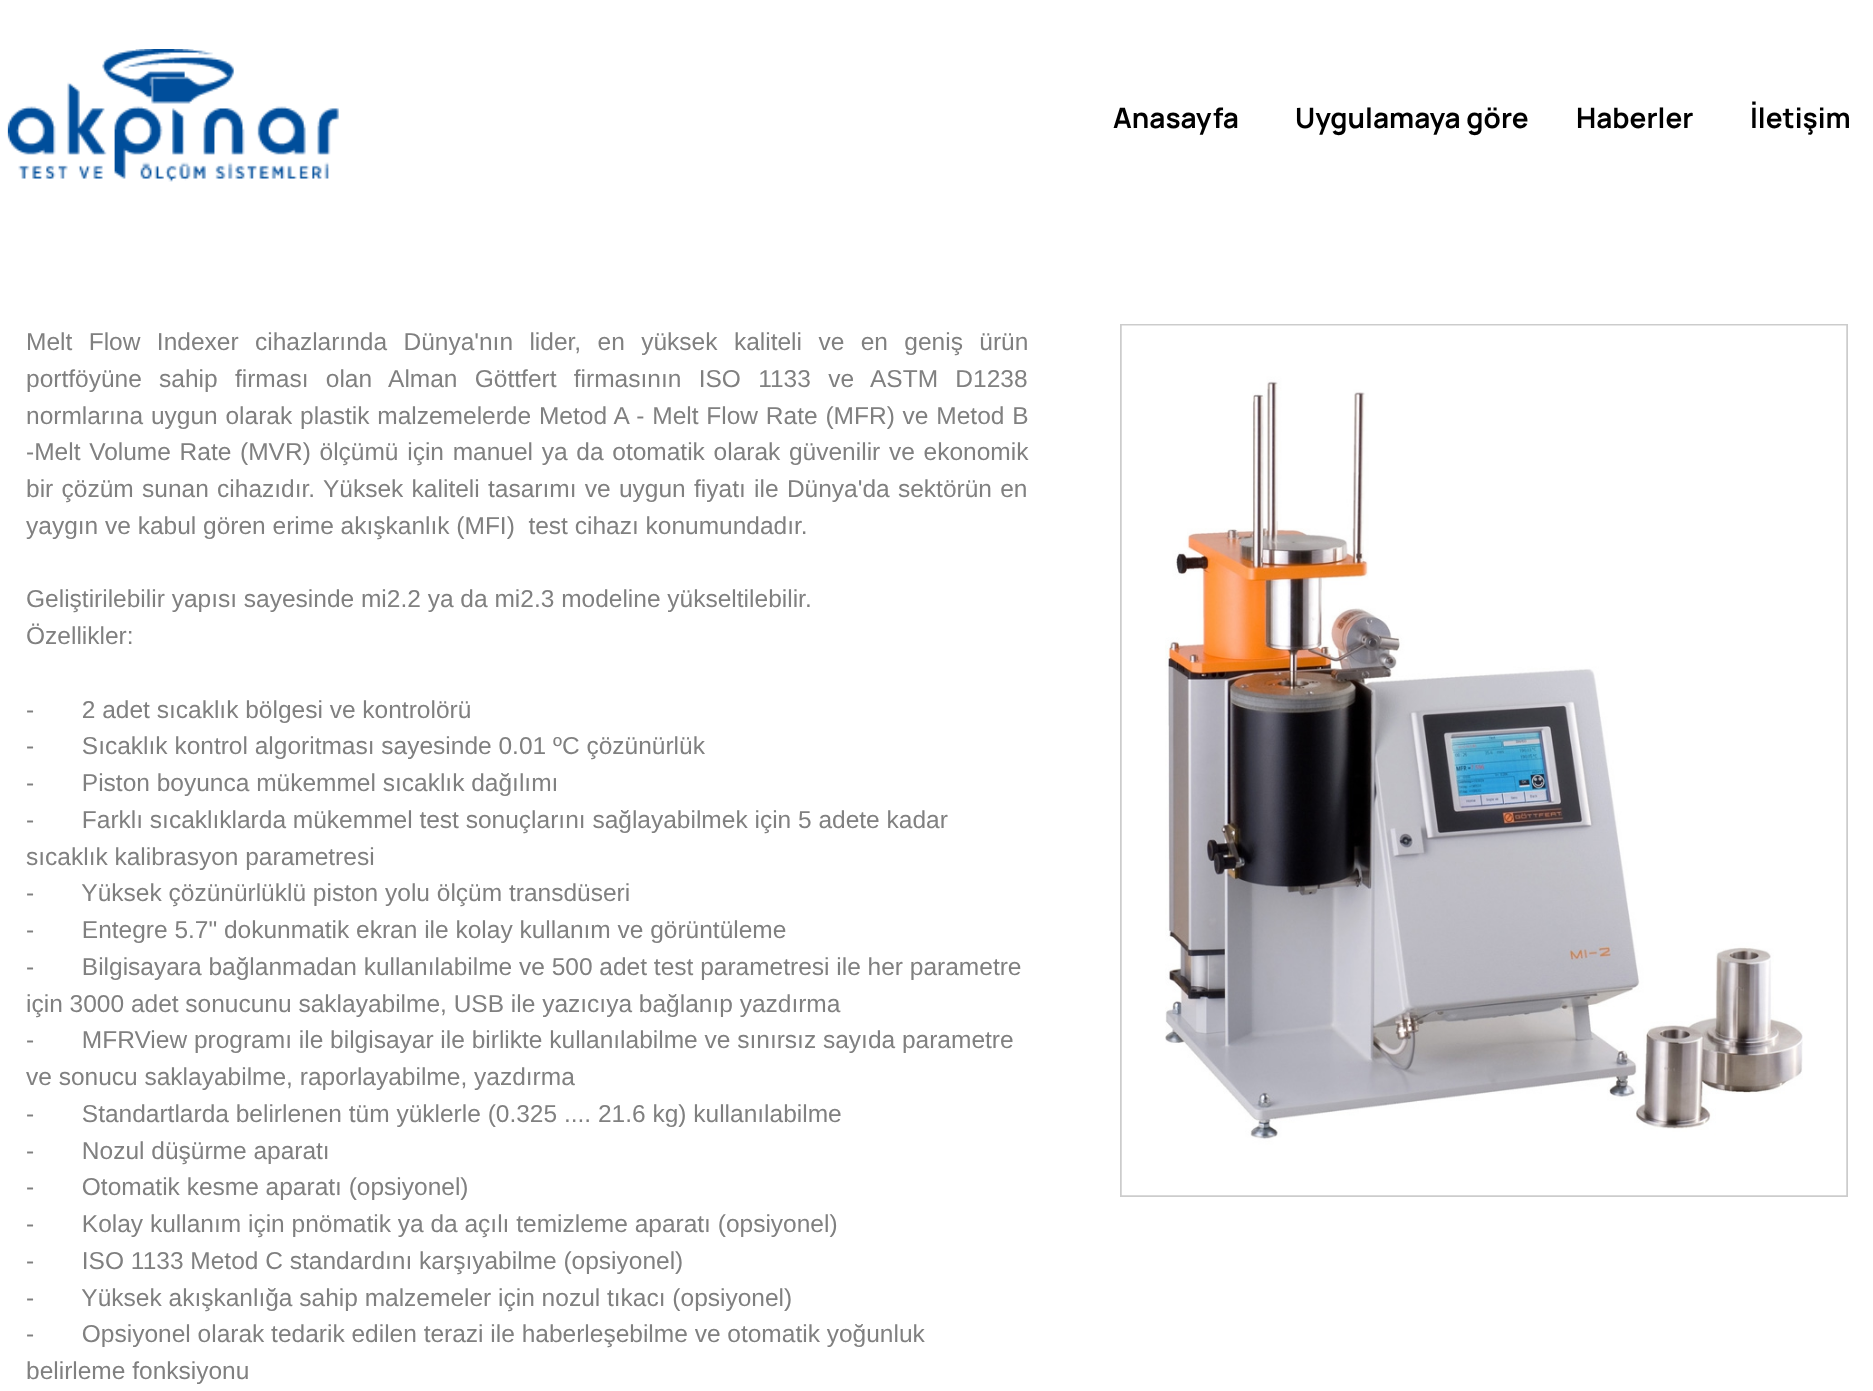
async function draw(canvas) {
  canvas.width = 1873;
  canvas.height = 1391;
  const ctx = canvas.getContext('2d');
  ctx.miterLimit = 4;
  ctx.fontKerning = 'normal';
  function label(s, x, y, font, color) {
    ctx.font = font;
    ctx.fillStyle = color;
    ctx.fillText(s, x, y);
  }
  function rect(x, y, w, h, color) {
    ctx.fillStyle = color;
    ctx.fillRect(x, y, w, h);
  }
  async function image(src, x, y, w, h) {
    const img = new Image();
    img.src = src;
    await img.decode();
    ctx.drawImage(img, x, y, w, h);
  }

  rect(0, 0, 1873, 1391, '#fff');
  await image('assets/img1.png', 7, 49, 332, 133);
  label('Anasayfa', 1113, 128, 'bold 28px Manrope', '#000');
  label('Uygulamaya göre', 1295, 128, 'bold 28px Manrope', '#000');
  label('Haberler', 1576, 128, 'bold 28px Manrope', '#000');
  label('İletişim', 1750, 128, 'bold 28px Manrope', '#000');
  ctx.wordSpacing = '9.6px';
  label('Melt Flow Indexer cihazlarında Dünya\'nın lider, en yüksek kaliteli ve en geniş ürün', 26, 350, '24.5px Liberation Sans', '#808080');
  ctx.wordSpacing = '10.5px';
  label('portföyüne sahip firması olan Alman Göttfert firmasının ISO 1133 ve ASTM D1238', 26, 387, '24.5px Liberation Sans', '#808080');
  ctx.wordSpacing = '1px';
  label('normlarına uygun olarak plastik malzemelerde Metod A - Melt Flow Rate (MFR) ve Metod B', 26, 424, '24.5px Liberation Sans', '#808080');
  ctx.wordSpacing = '1.9px';
  label('-Melt Volume Rate (MVR) ölçümü için manuel ya da otomatik olarak güvenilir ve ekonomik', 26, 460, '24.5px Liberation Sans', '#808080');
  ctx.wordSpacing = '1.5px';
  label('bir çözüm sunan cihazıdır. Yüksek kaliteli tasarımı ve uygun fiyatı ile Dünya\'da sektörün en', 26, 497, '24.5px Liberation Sans', '#808080');
  ctx.wordSpacing = '0px';
  label('yaygın ve kabul gören erime akışkanlık (MFI)  test cihazı konumundadır.', 26, 534, '24.5px Liberation Sans', '#808080');
  label('Geliştirilebilir yapısı sayesinde mi2.2 ya da mi2.3 modeline yükseltilebilir.', 26, 607, '24.5px Liberation Sans', '#808080');
  label('Özellikler:', 26, 644, '24.5px Liberation Sans', '#808080');
  label('-       2 adet sıcaklık bölgesi ve kontrolörü', 26, 718, '24.5px Liberation Sans', '#808080');
  label('-       Sıcaklık kontrol algoritması sayesinde 0.01 ºC çözünürlük', 26, 754, '24.5px Liberation Sans', '#808080');
  label('-       Piston boyunca mükemmel sıcaklık dağılımı', 26, 791, '24.5px Liberation Sans', '#808080');
  label('-       Farklı sıcaklıklarda mükemmel test sonuçlarını sağlayabilmek için 5 adete kadar', 26, 828, '24.5px Liberation Sans', '#808080');
  label('sıcaklık kalibrasyon parametresi', 26, 865, '24.5px Liberation Sans', '#808080');
  label('-       Yüksek çözünürlüklü piston yolu ölçüm transdüseri', 26, 901, '24.5px Liberation Sans', '#808080');
  label('-       Entegre 5.7" dokunmatik ekran ile kolay kullanım ve görüntüleme', 26, 938, '24.5px Liberation Sans', '#808080');
  label('-       Bilgisayara bağlanmadan kullanılabilme ve 500 adet test parametresi ile her parametre', 26, 975, '24.5px Liberation Sans', '#808080');
  label('için 3000 adet sonucunu saklayabilme, USB ile yazıcıya bağlanıp yazdırma', 26, 1012, '24.5px Liberation Sans', '#808080');
  label('-       MFRView programı ile bilgisayar ile birlikte kullanılabilme ve sınırsız sayıda parametre', 26, 1048, '24.5px Liberation Sans', '#808080');
  label('ve sonucu saklayabilme, raporlayabilme, yazdırma', 26, 1085, '24.5px Liberation Sans', '#808080');
  label('-       Standartlarda belirlenen tüm yüklerle (0.325 .... 21.6 kg) kullanılabilme', 26, 1122, '24.5px Liberation Sans', '#808080');
  label('-       Nozul düşürme aparatı', 26, 1159, '24.5px Liberation Sans', '#808080');
  label('-       Otomatik kesme aparatı (opsiyonel)', 26, 1195, '24.5px Liberation Sans', '#808080');
  label('-       Kolay kullanım için pnömatik ya da açılı temizleme aparatı (opsiyonel)', 26, 1232, '24.5px Liberation Sans', '#808080');
  label('-       ISO 1133 Metod C standardını karşıyabilme (opsiyonel)', 26, 1269, '24.5px Liberation Sans', '#808080');
  label('-       Yüksek akışkanlığa sahip malzemeler için nozul tıkacı (opsiyonel)', 26, 1306, '24.5px Liberation Sans', '#808080');
  label('-       Opsiyonel olarak tedarik edilen terazi ile haberleşebilme ve otomatik yoğunluk', 26, 1342, '24.5px Liberation Sans', '#808080');
  label('belirleme fonksiyonu', 26, 1379, '24.5px Liberation Sans', '#808080');
  ctx.strokeStyle = '#ccc';
  ctx.lineWidth = 2;
  ctx.strokeRect(1121, 325, 726, 871);
  await image('assets/img2.png', 1121, 325, 726, 871);
}

draw(document.querySelector('canvas'));
